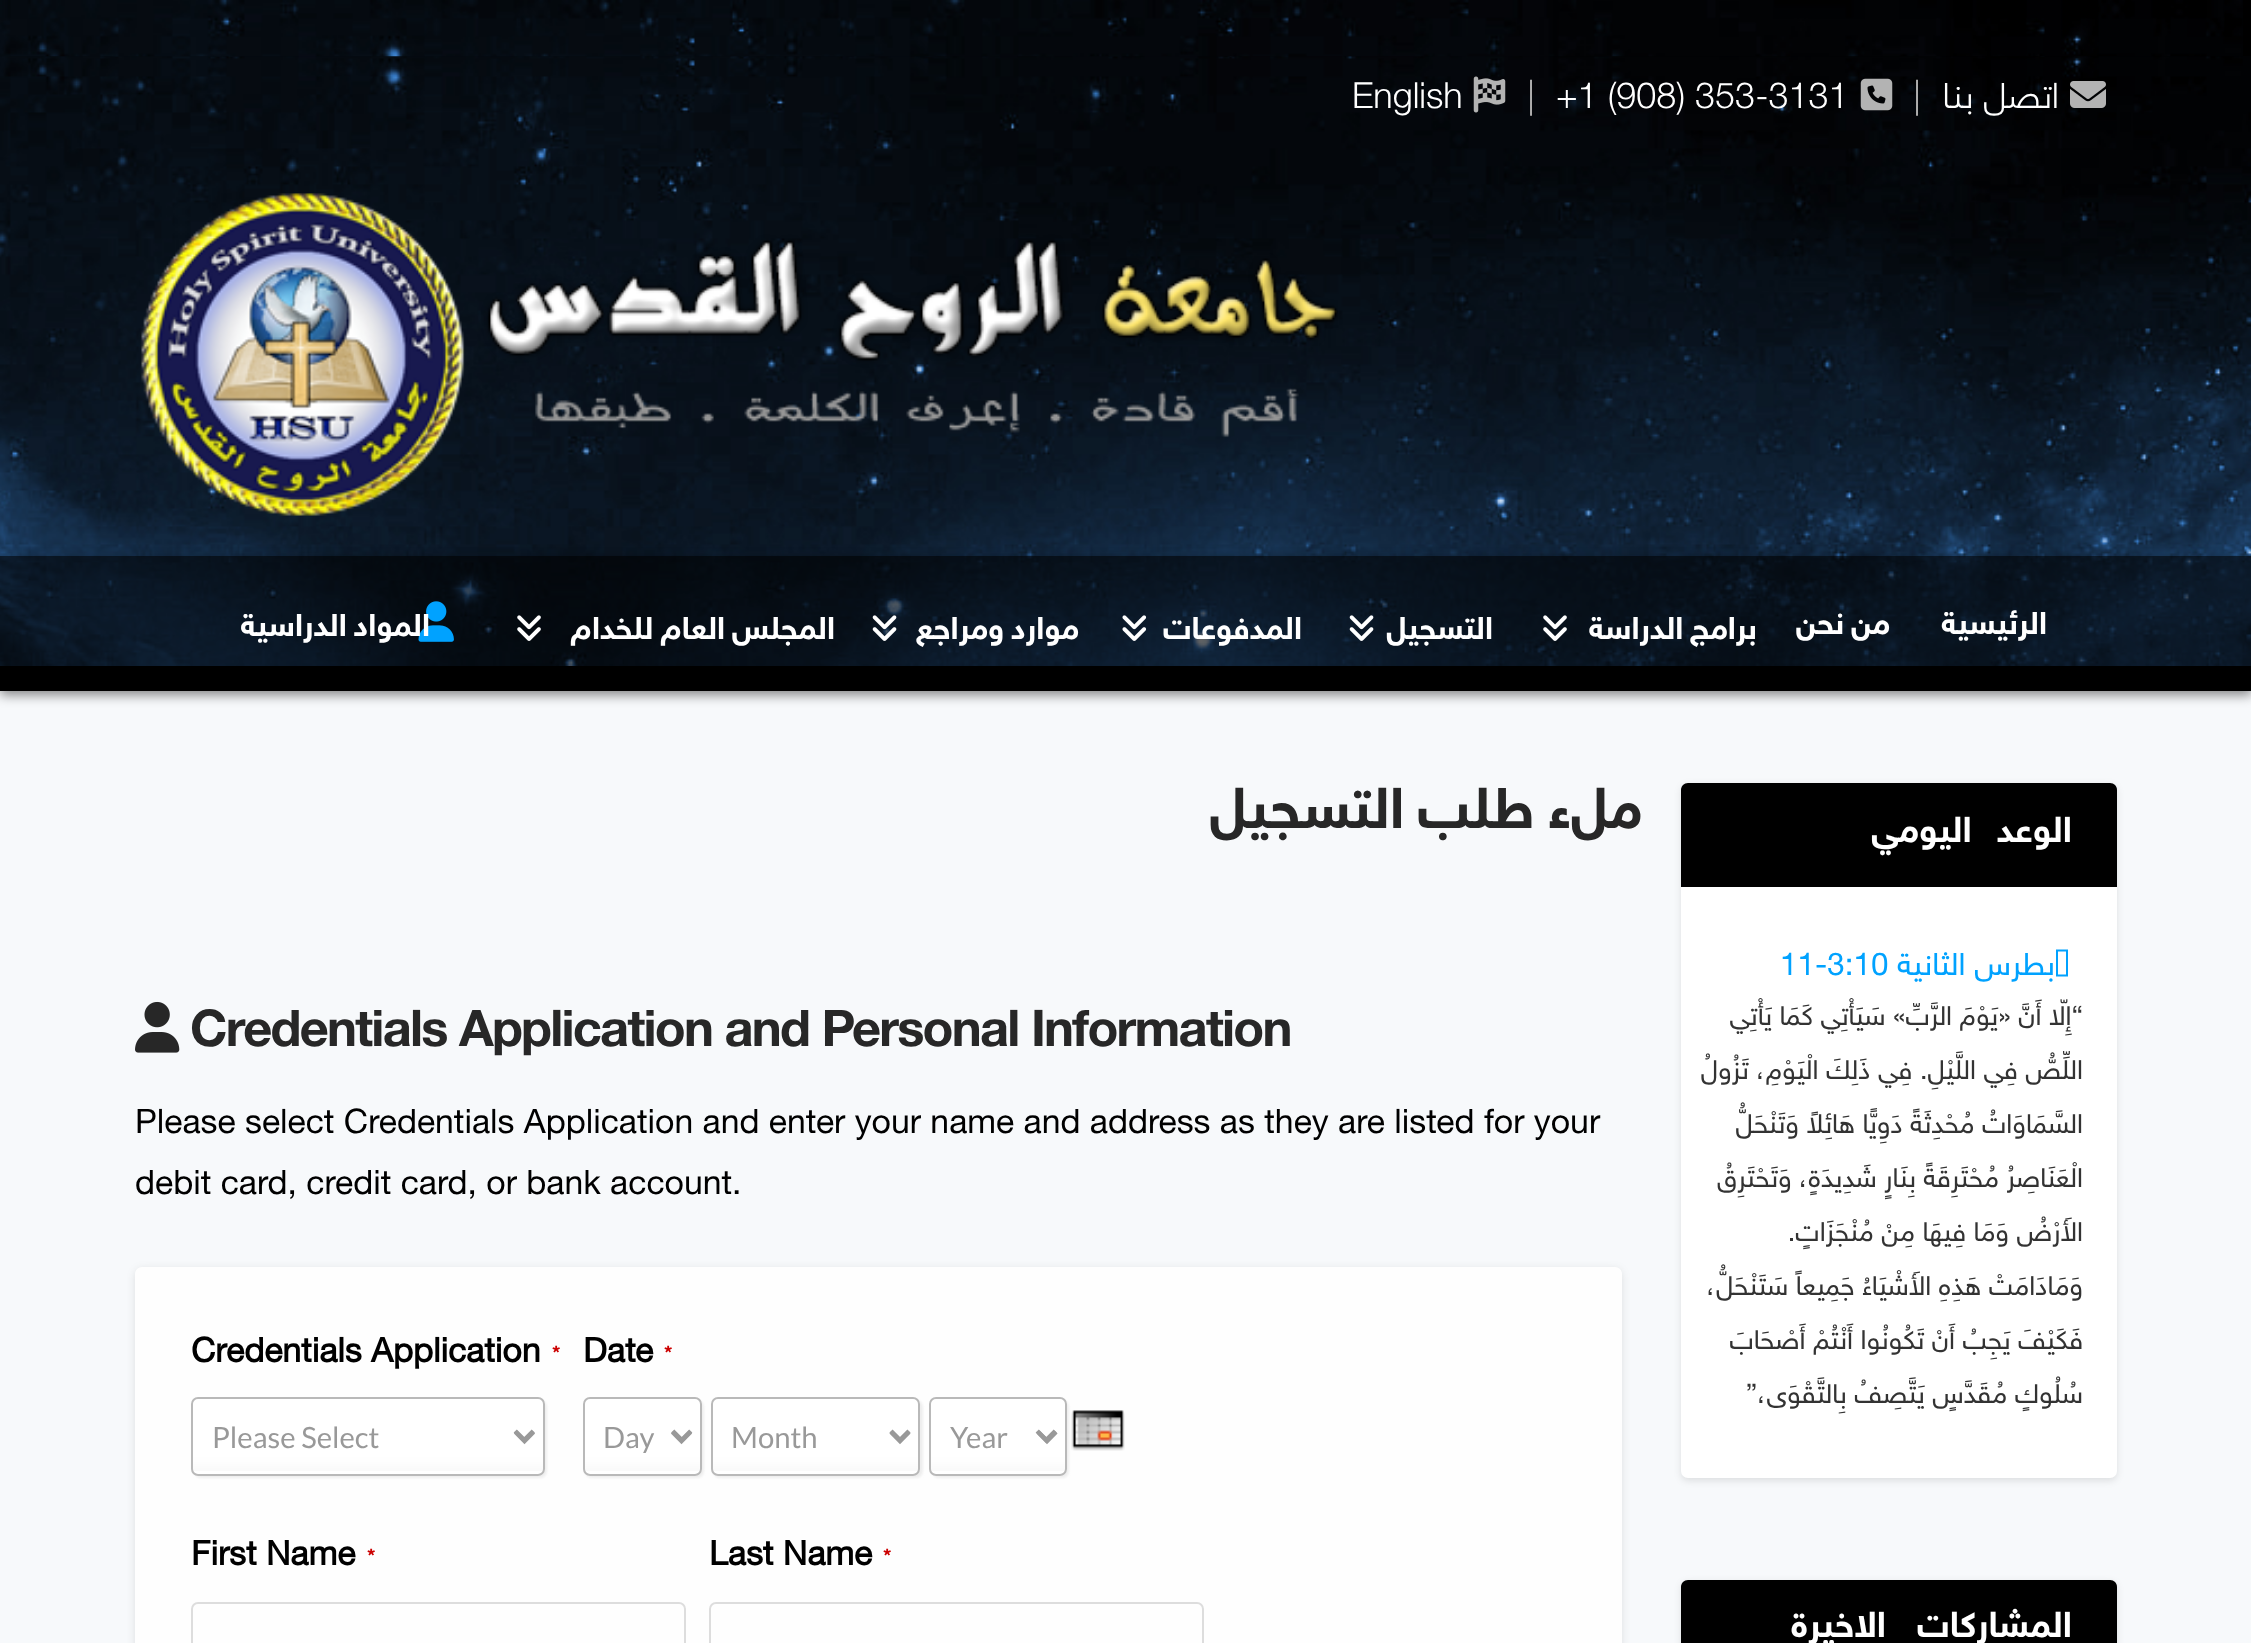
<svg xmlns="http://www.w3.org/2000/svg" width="2251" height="1643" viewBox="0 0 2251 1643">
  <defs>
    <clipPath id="clip1"><path d="M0 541H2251V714H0ZM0 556H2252V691H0Z" clip-rule="evenodd"/></clipPath>
  </defs>
  <rect width="100%" height="100%" fill="rgb(247,249,251)"/>
  <rect x="0" y="666" width="2251" height="25" fill="rgb(0,0,0)"/>
  <image x="0" y="56" width="2251" height="610" href="pic1.png"/>
  <rect x="2243" y="0" width="8" height="56" fill="rgb(0,0,0)"/>
  <image x="0" y="0" width="2243" height="57" href="pic2.png"/>
  <image x="2070" y="81" width="36" height="27" href="pic3.png"/>
  <text x="2059" y="108" font-family="'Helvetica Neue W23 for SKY'" font-size="36" font-weight="300" direction="rtl" fill="rgb(255,255,255)">اتصل بنا</text>
  <text x="1913" y="108" font-family="'Helvetica Neue W23 for SKY'" font-size="36" font-weight="300" fill="rgb(179,179,179)">|</text>
  <image x="1860" y="78" width="33" height="33" href="pic4.png"/>
  <text x="1556" y="108" font-family="'Helvetica Neue W23 for SKY'" font-size="36" font-weight="300" fill="rgb(255,255,255)">+1 (908) 353-3131</text>
  <text x="1527" y="108" font-family="'Helvetica Neue W23 for SKY'" font-size="36" font-weight="300" fill="rgb(179,179,179)">|</text>
  <image x="1473" y="76" width="33" height="37" href="pic5.png"/>
  <text x="1352" y="108" font-family="'Helvetica Neue W23 for SKY'" font-size="36" font-weight="300" fill="rgb(255,255,255)">English</text>
  <image x="141" y="193" width="1197" height="323" href="pic6.png"/>
  <g clip-path="url(#clip1)">
    <rect x="0" y="560" width="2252" height="135" fill="rgba(0,0,0,0.47)" filter="blur(6px)"/>
  </g>
  <rect x="0" y="556" width="2251" height="110" fill="rgba(0,0,0,0.6)"/>
  <g font-family="'Helvetica Neue W23 for SKY'" font-size="31.5" font-weight="bold" letter-spacing="1.4" direction="rtl" fill="rgb(255,255,255)">
    <text x="2047" y="634">الرئيسية</text>
    <text x="1890" y="634" word-spacing="-2">من نحن</text>
    <text x="1757" y="639" word-spacing="-2">برامج الدراسة</text>
  </g>
  <image x="1543" y="615" width="24" height="26" href="pic7.png"/>
  <text x="1493" y="639" font-family="'Helvetica Neue W23 for SKY'" font-size="31.5" font-weight="bold" letter-spacing="1.4" direction="rtl" fill="rgb(255,255,255)">التسجيل</text>
  <image x="1349" y="615" width="25" height="26" href="pic8.png"/>
  <text x="1302" y="639" font-family="'Helvetica Neue W23 for SKY'" font-size="31.5" font-weight="bold" letter-spacing="1.4" direction="rtl" fill="rgb(255,255,255)">المدفوعات</text>
  <image x="1122" y="615" width="25" height="26" href="pic9.png"/>
  <text x="1079" y="639" word-spacing="-2" font-family="'Helvetica Neue W23 for SKY'" font-size="31.5" font-weight="bold" letter-spacing="1.4" direction="rtl" fill="rgb(255,255,255)">موارد ومراجع</text>
  <image x="872" y="615" width="25" height="26" href="pic10.png"/>
  <text x="835" y="639" word-spacing="-2" font-family="'Helvetica Neue W23 for SKY'" font-size="31.5" font-weight="bold" letter-spacing="1.4" direction="rtl" fill="rgb(255,255,255)">المجلس العام للخدام</text>
  <image x="517" y="615" width="24" height="26" href="pic11.png"/>
  <image x="418" y="601" width="36" height="41" href="pic12.png"/>
  <text x="430" y="636" word-spacing="-2" font-family="'Helvetica Neue W23 for SKY'" font-size="31.5" font-weight="bold" letter-spacing="1.4" direction="rtl" fill="rgb(255,255,255)">المواد الدراسية</text>
  <rect x="1681" y="785" width="436" height="696" rx="7" fill="rgba(0,0,0,0.1)" filter="blur(3.5px)"/>
  <rect x="1681" y="783" width="436" height="695" rx="7" fill="rgb(255,255,255)"/>
  <path d="M1688 783H2110C2114 783 2117 786 2117 790V887H1681V790C1681 786 1684 783 1688 783Z" fill="rgb(0,0,0)"/>
  <text x="2072" y="842" word-spacing="15" font-family="'Helvetica Neue W23 for SKY'" font-size="36" font-weight="bold" letter-spacing="-1.25" direction="rtl" fill="rgb(255,255,255)">الوعد اليومي</text>
  <text x="2055" y="975" font-family="'Helvetica Neue W23 for SKY'" font-size="31.5" direction="rtl" fill="rgb(0,162,255)">ﺑﻄﺮﺱ ﺍﻟﺜﺎﻧﻴﺔ</text>
  <path d="M2058 974.5H2066V951.5H2058ZM2056 976.5V949.5H2068V976.5Z" fill="rgb(0,162,255)"/>
  <text x="1780" y="975" font-family="'Helvetica Neue W23 for SKY'" font-size="31.5" fill="rgb(0,162,255)">11-3:10</text>
  <g font-family="'Helvetica Neue W23 for SKY'" font-size="27" direction="rtl" fill="rgb(51,51,51)">
    <text x="2083" y="1025">“إِلّا أَنَّ «يَوْمَ الرَّبِّ» سَيَأْتِي كَمَا يَأْتِي</text>
    <text x="2083" y="1079">اللِّصُّ فِي اللَّيْلِ. فِي ذَلِكَ الْيَوْمِ، تَزُولُ</text>
    <text x="2083" y="1133">السَّمَاوَاتُ مُحْدِثَةً دَوِيًّا هَائِلاً وَتَنْحَلُّ</text>
    <text x="2083" y="1187">الْعَنَاصِرُ مُحْتَرِقَةً بِنَارٍ شَدِيدَةٍ، وَتَحْتَرِقُ</text>
    <text x="2083" y="1241">الأَرْضُ وَمَا فِيهَا مِنْ مُنْجَزَاتٍ.</text>
    <text x="2083" y="1295">وَمَادَامَتْ هَذِهِ الأَشْيَاءُ جَمِيعاً سَتَنْحَلُّ،</text>
    <text x="2083" y="1349">فَكَيْفَ يَجِبُ أَنْ تَكُونُوا أَنْتُمْ أَصْحَابَ</text>
    <text x="2083" y="1403">سُلُوكٍ مُقَدَّسٍ يَتَّصِفُ بِالتَّقْوَى،”</text>
  </g>
  <rect x="1681" y="1582" width="436" height="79" rx="7" fill="rgba(0,0,0,0.1)" filter="blur(3.5px)"/>
  <path d="M1688 1580H2110C2114 1580 2117 1583 2117 1587V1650H1681V1587C1681 1583 1684 1580 1688 1580Z" fill="rgb(0,0,0)"/>
  <text x="2072" y="1637" word-spacing="21" font-family="'Helvetica Neue W23 for SKY'" font-size="36" font-weight="bold" letter-spacing="-1.25" direction="rtl" fill="rgb(255,255,255)">المشاركات الاخيرة</text>
  <text x="1642" y="828" word-spacing="-3" font-family="'Helvetica Neue W23 for SKY'" font-size="57.5" font-weight="bold" letter-spacing="1.75" direction="rtl" fill="rgb(39,39,39)">ملء طلب التسجيل</text>
  <text x="190" y="1046" font-family="'Helvetica Neue W23 for SKY'" font-size="50.6" font-weight="bold" letter-spacing="-1.75" fill="rgb(39,39,39)">Credentials Application and Personal Information</text>
  <image x="135" y="1001" width="45" height="52" href="pic13.png"/>
  <g font-family="'Helvetica Neue W23 for SKY'" font-size="33.75" fill="rgb(0,0,0)">
    <text>
      <tspan x="135" y="1133">Please select Credentials Application and enter your name and address as they are listed for your</tspan>
      <tspan x="135" y="1194">debit card, credit card, or bank account.</tspan>
    </text>
  </g>
  <rect x="135" y="1269" width="1487" height="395" rx="7" fill="rgba(0,0,0,0.1)" filter="blur(4.5px)"/>
  <rect x="135" y="1267" width="1487" height="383" rx="7" fill="rgb(254,254,254)"/>
  <text x="664" y="1362" font-family="'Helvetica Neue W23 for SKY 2'" font-size="22" font-weight="bold" fill="rgb(204,1,1)">*</text>
  <text x="583" y="1362" font-family="'Helvetica Neue W23 for SKY 2'" font-size="33.75" font-weight="bold" fill="rgb(0,0,0)">Date</text>
  <rect x="932" y="1400" width="137" height="78" rx="7" fill="rgb(238,238,238)" filter="blur(1px)"/>
  <image x="1071" y="1410" width="54" height="41" href="pic14.png"/>
  <rect x="929" y="1397" width="138" height="79" rx="7" fill="rgb(255,255,255)"/>
  <image x="931" y="1429" width="134" height="42" href="pic15.png"/>
  <rect x="930" y="1398" width="136" height="77" rx="6" fill="none" stroke="rgb(185,185,185)" stroke-width="2"/>
  <path d="M1038 1432L1047 1441L1056 1432" fill="none" stroke="rgb(153,153,153)" stroke-width="4.5"/>
  <text x="950" y="1448" font-family="Lato" font-size="29.25" fill="rgb(153,153,153)">Year</text>
  <rect x="713" y="1400" width="210" height="78" rx="7" fill="rgb(238,238,238)" filter="blur(1px)"/>
  <rect x="711" y="1397" width="209" height="79" rx="7" fill="rgb(255,255,255)"/>
  <image x="711" y="1429" width="209" height="42" href="pic16.png"/>
  <rect x="712" y="1398" width="207" height="77" rx="6" fill="none" stroke="rgb(185,185,185)" stroke-width="2"/>
  <path d="M891 1432L900 1441L909 1432" fill="none" stroke="rgb(153,153,153)" stroke-width="4.5"/>
  <text x="731" y="1448" font-family="Lato" font-size="29.25" fill="rgb(153,153,153)">Month</text>
  <rect x="585" y="1400" width="119" height="78" rx="7" fill="rgb(238,238,238)" filter="blur(1px)"/>
  <rect x="583" y="1397" width="119" height="79" rx="7" fill="rgb(255,255,255)"/>
  <image x="583" y="1429" width="119" height="42" href="pic17.png"/>
  <rect x="584" y="1398" width="117" height="77" rx="6" fill="none" stroke="rgb(185,185,185)" stroke-width="2"/>
  <path d="M672.5 1432L681.5 1441L690.5 1432" fill="none" stroke="rgb(153,153,153)" stroke-width="4.5"/>
  <text x="603" y="1448" font-family="Lato" font-size="29.25" fill="rgb(153,153,153)">Day</text>
  <text x="552" y="1362" font-family="'Helvetica Neue W23 for SKY 2'" font-size="22" font-weight="bold" fill="rgb(204,1,1)">*</text>
  <text x="191" y="1362" font-family="'Helvetica Neue W23 for SKY 2'" font-size="33.75" font-weight="bold" fill="rgb(0,0,0)">Credentials Application</text>
  <rect x="194" y="1400" width="353" height="78" rx="7" fill="rgb(238,238,238)" filter="blur(1px)"/>
  <rect x="191" y="1397" width="354" height="79" rx="7" fill="rgb(255,255,255)"/>
  <image x="193" y="1429" width="350" height="42" href="pic18.png"/>
  <rect x="192" y="1398" width="352" height="77" rx="6" fill="none" stroke="rgb(185,185,185)" stroke-width="2"/>
  <path d="M515.5 1432L524.5 1441L533.5 1432" fill="none" stroke="rgb(153,153,153)" stroke-width="4.5"/>
  <text x="212" y="1448" font-family="Lato" font-size="29.25" fill="rgb(153,153,153)">Please Select</text>
  <text x="883" y="1565" font-family="'Helvetica Neue W23 for SKY 2'" font-size="22" font-weight="bold" fill="rgb(204,1,1)">*</text>
  <text x="709" y="1565" font-family="'Helvetica Neue W23 for SKY 2'" font-size="33.75" font-weight="bold" fill="rgb(0,0,0)">Last Name</text>
  <rect x="710" y="1603" width="493" height="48" rx="6" fill="none" stroke="rgb(221,221,221)" stroke-width="2"/>
  <text x="367" y="1565" font-family="'Helvetica Neue W23 for SKY 2'" font-size="22" font-weight="bold" fill="rgb(204,1,1)">*</text>
  <text x="191" y="1565" font-family="'Helvetica Neue W23 for SKY 2'" font-size="33.75" font-weight="bold" fill="rgb(0,0,0)">First Name</text>
  <rect x="192" y="1603" width="493" height="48" rx="6" fill="none" stroke="rgb(221,221,221)" stroke-width="2"/>
</svg>
